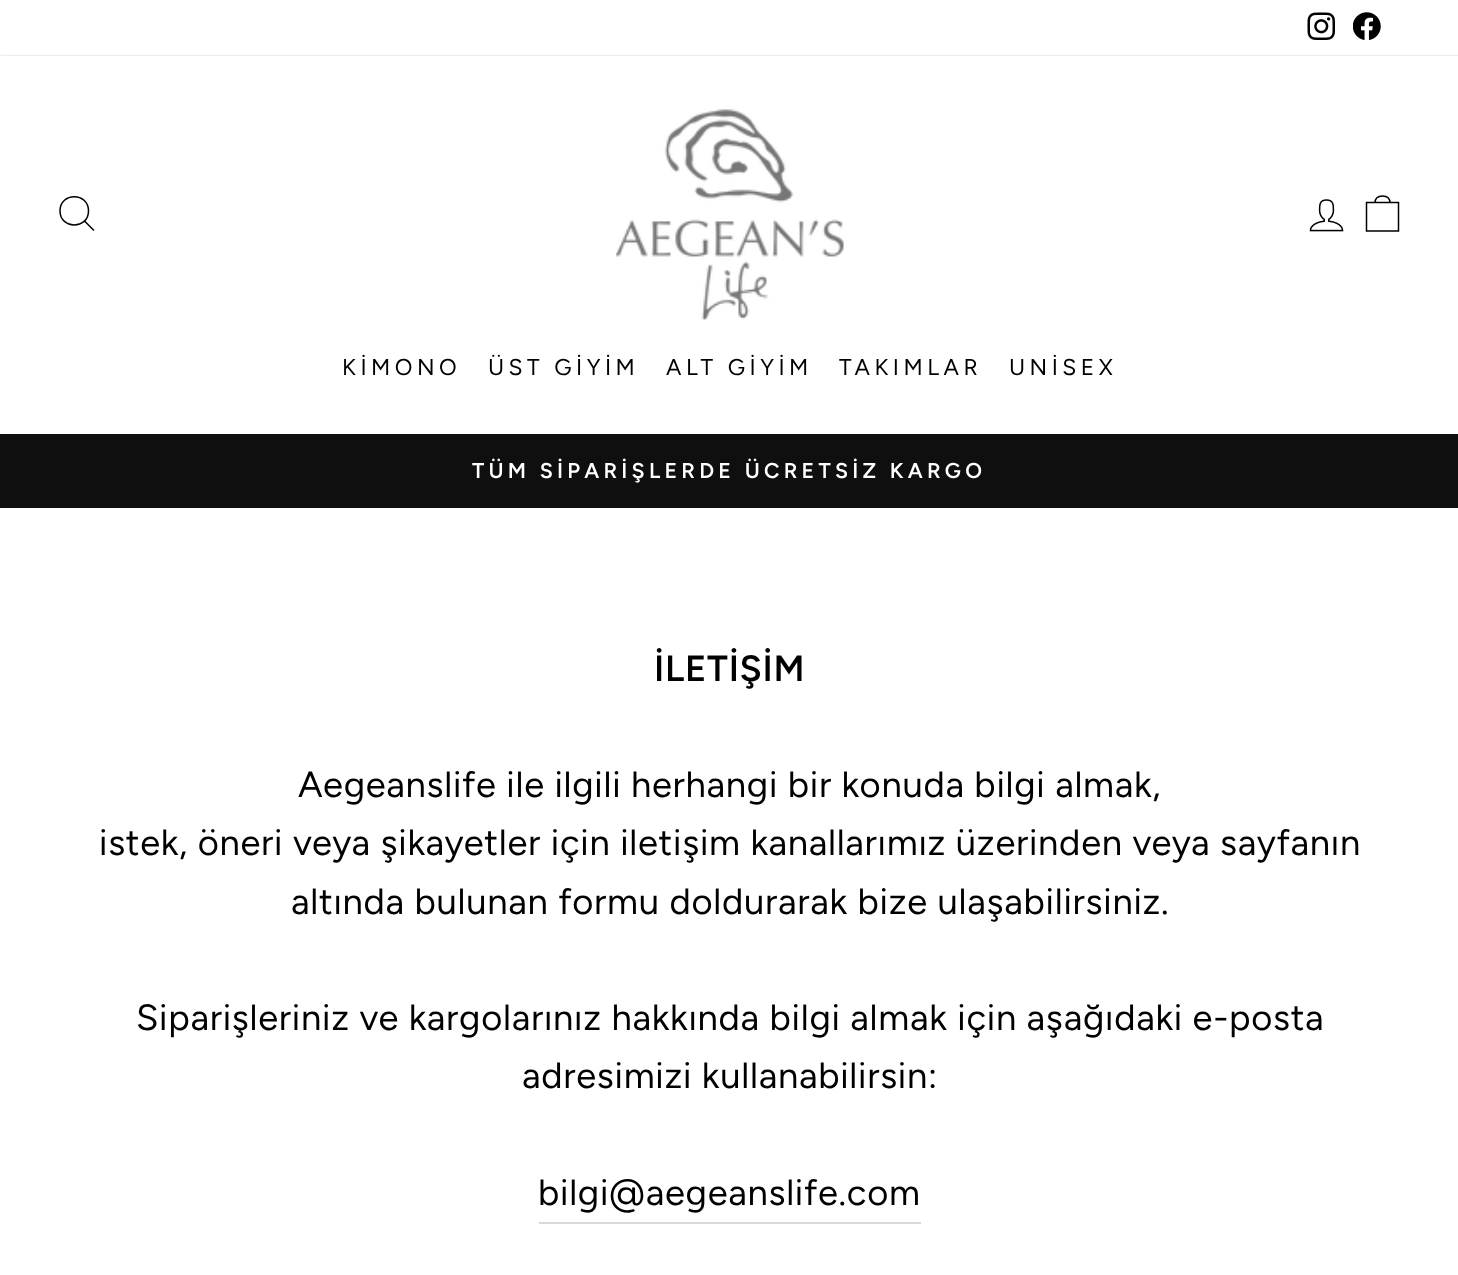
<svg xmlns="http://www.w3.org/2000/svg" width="1458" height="1275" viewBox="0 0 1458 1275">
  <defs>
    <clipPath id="clip1"><path d="M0 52H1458V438H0ZM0 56H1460V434H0Z" clip-rule="evenodd"/></clipPath>
  </defs>
  <rect width="100%" height="100%" fill="rgb(255,255,255)"/>
  <image x="1307" y="12" width="28" height="28" href="pic1.png"/>
  <image x="1353" y="12" width="28" height="28" href="pic2.png"/>
  <rect x="0" y="434" width="1458" height="74" fill="rgb(15,15,15)"/>
  <g clip-path="url(#clip1)">
    <rect x="0" y="56" width="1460" height="378" fill="rgba(0,0,0,0.2)" filter="blur(1px)"/>
  </g>
  <path d="M88.5 211C88.5 229.5 60 229.5 60 211C60 192 88.5 192 88.5 211ZM94 230.5L84.5 221" fill="none" stroke="rgb(0,0,0)" stroke-width="1.5"/>
  <image x="616" y="109" width="228" height="211" href="pic3.png"/>
  <image x="1309" y="199" width="35" height="33" href="pic4.png"/>
  <path d="M1366.5 202.5H1398.5V231H1366.5ZM1375 203C1375 197.5 1378.5 196 1382.5 196C1386.5 196 1390 197.5 1390 203" fill="none" stroke="rgb(0,0,0)" stroke-width="1.5"/>
  <g font-family="Figtree" font-size="22.75" letter-spacing="4.5" fill="rgb(0,0,0)">
    <text x="342" y="375">KİMONO</text>
    <text x="488" y="375">ÜST GİYİM</text>
    <text x="666" y="375">ALT GİYİM</text>
    <text x="839" y="375">TAKIMLAR</text>
    <text x="1009" y="375">UNİSEX</text>
  </g>
  <text x="472" y="478" font-family="Figtree" font-size="21.4" font-weight="600" letter-spacing="4.25" fill="rgb(255,255,255)">TÜM SİPARİŞLERDE ÜCRETSİZ KARGO</text>
  <text x="654" y="681" font-family="Figtree" font-size="36.4" font-weight="600" letter-spacing="0.7" fill="rgb(0,0,0)">İLETİŞİM</text>
  <g font-family="Figtree" font-size="36.4" letter-spacing="0.7" fill="rgb(0,0,0)">
    <text x="298" y="797">Aegeanslife ile ilgili herhangi bir konuda bilgi almak,</text>
    <text x="99" y="855">istek, öneri veya şikayetler için iletişim kanallarımız üzerinden veya sayfanın</text>
    <text x="291" y="914">altında bulunan formu doldurarak bize ulaşabilirsiniz.</text>
    <text x="136" y="1030">Siparişleriniz ve kargolarınız hakkında bilgi almak için aşağıdaki e-posta</text>
    <text x="522" y="1088">adresimizi kullanabilirsin:</text>
  </g>
  <rect x="539" y="1222" width="382" height="2" fill="rgb(217,217,217)"/>
  <text x="538" y="1205" font-family="Figtree" font-size="36.4" letter-spacing="0.7" fill="rgb(0,0,0)">bilgi@aegeanslife.com</text>
</svg>
